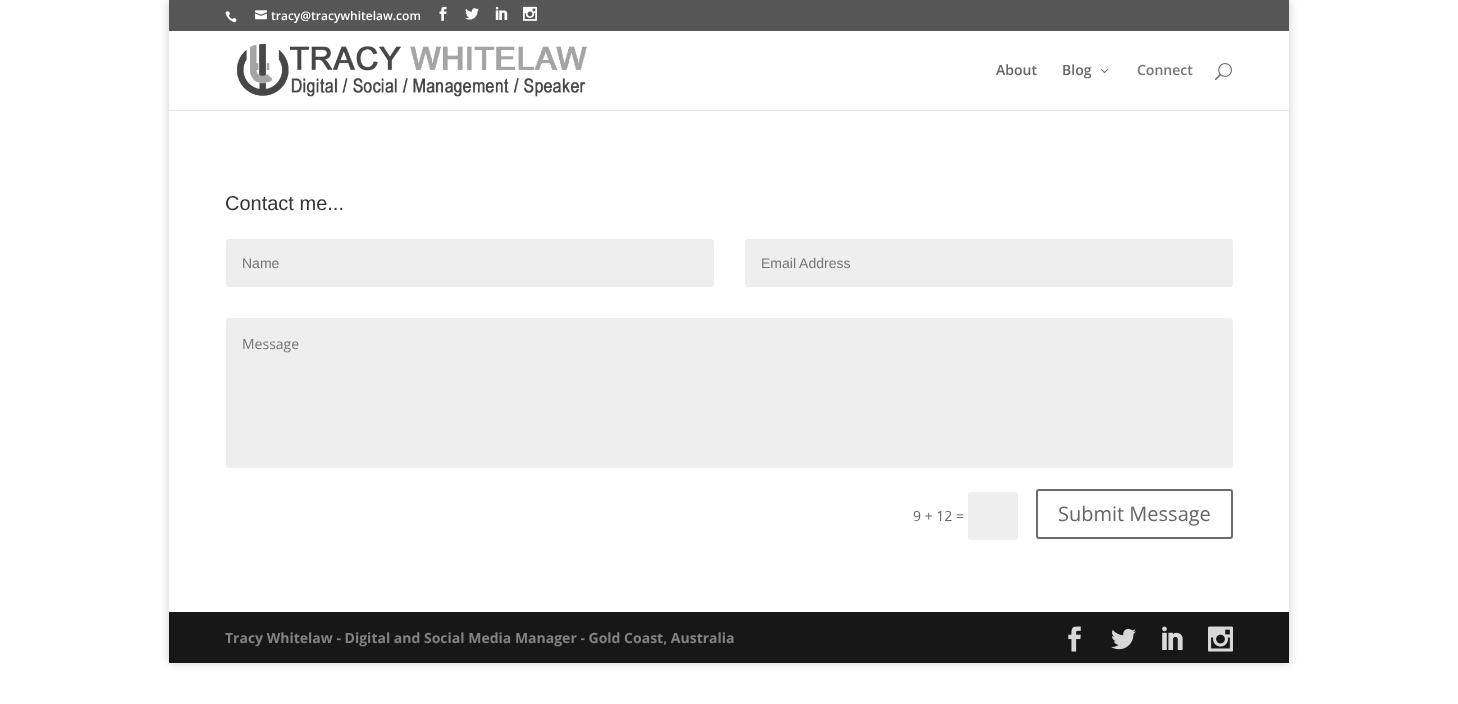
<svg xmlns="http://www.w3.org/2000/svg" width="1458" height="704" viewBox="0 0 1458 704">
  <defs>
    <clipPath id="clip1"><path d="M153 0H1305V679H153ZM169 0H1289V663H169Z" clip-rule="evenodd"/></clipPath>
  </defs>
  <rect width="100%" height="100%" fill="rgb(255,255,255)"/>
  <g clip-path="url(#clip1)">
    <rect x="169" y="0" width="1120" height="663" fill="rgba(0,0,0,0.2)" filter="blur(5px)"/>
  </g>
  <rect x="169" y="0" width="1120" height="31" fill="rgb(86,86,86)"/>
  <image x="225" y="11" width="12" height="12" href="pic1.png"/>
  <image x="255" y="10" width="12" height="10" href="pic2.png"/>
  <text x="271" y="20" font-family="Open Sans" font-size="12" font-weight="600" fill="rgb(255,255,255)">tracy@tracywhitelaw.com</text>
  <image x="439" y="6" width="8" height="15" href="pic3.png"/>
  <image x="465" y="8" width="14" height="12" href="pic4.png"/>
  <image x="495" y="6" width="13" height="14" href="pic5.png"/>
  <image x="523" y="6" width="14" height="15" href="pic6.png"/>
  <rect x="169" y="110" width="1120" height="1" fill="rgb(230,230,230)"/>
  <image x="237" y="44" width="350" height="53" href="pic7.png"/>
  <g font-family="Open Sans" font-size="14" font-weight="600" fill="rgb(102,102,102)">
    <text x="996" y="75">About</text>
    <text x="1062" y="75">Blog</text>
  </g>
  <image x="1100" y="68" width="9" height="5" href="pic8.png"/>
  <text x="1137" y="75" font-family="Open Sans" font-size="14" font-weight="600" fill="rgb(117,117,117)">Connect</text>
  <image x="1215" y="63" width="17" height="18" href="pic9.png"/>
  <text x="225" y="210" font-family="Liberation Sans" font-size="20" fill="rgb(51,51,51)">Contact me...</text>
  <rect x="226" y="239" width="488" height="48" rx="3" fill="rgb(238,238,238)"/>
  <text x="242" y="268" font-family="Liberation Sans" font-size="14" fill="rgb(117,117,117)">Name</text>
  <rect x="745" y="239" width="488" height="48" rx="3" fill="rgb(238,238,238)"/>
  <text x="761" y="268" font-family="Liberation Sans" font-size="14" fill="rgb(117,117,117)">Email Address</text>
  <rect x="226" y="318" width="1007" height="150" rx="3" fill="rgb(238,238,238)"/>
  <text x="242" y="349" font-family="Open Sans" font-size="14" fill="rgb(117,117,117)">Message</text>
  <text x="913" y="521" font-family="Open Sans" font-size="14" fill="rgb(102,102,102)">9 + 12 =</text>
  <rect x="968" y="492" width="50" height="48" rx="3" fill="rgb(238,238,238)"/>
  <rect x="1037" y="490" width="195" height="48" rx="2" fill="none" stroke="rgb(107,107,107)" stroke-width="2"/>
  <text x="1058" y="521" font-family="Open Sans" font-size="20" fill="rgb(102,102,102)">Submit Message</text>
  <rect x="169" y="612" width="1120" height="51" fill="rgb(23,23,23)"/>
  <text x="225" y="643" font-family="Open Sans" font-size="14" font-weight="bold" fill="rgb(130,130,130)">Tracy Whitelaw - Digital and Social Media Manager - Gold Coast, Australia</text>
  <image x="1068" y="626" width="13" height="26" href="pic10.png"/>
  <image x="1111" y="628" width="25" height="22" href="pic11.png"/>
  <image x="1162" y="626" width="21" height="24" href="pic12.png"/>
  <image x="1208" y="626" width="25" height="26" href="pic13.png"/>
</svg>
